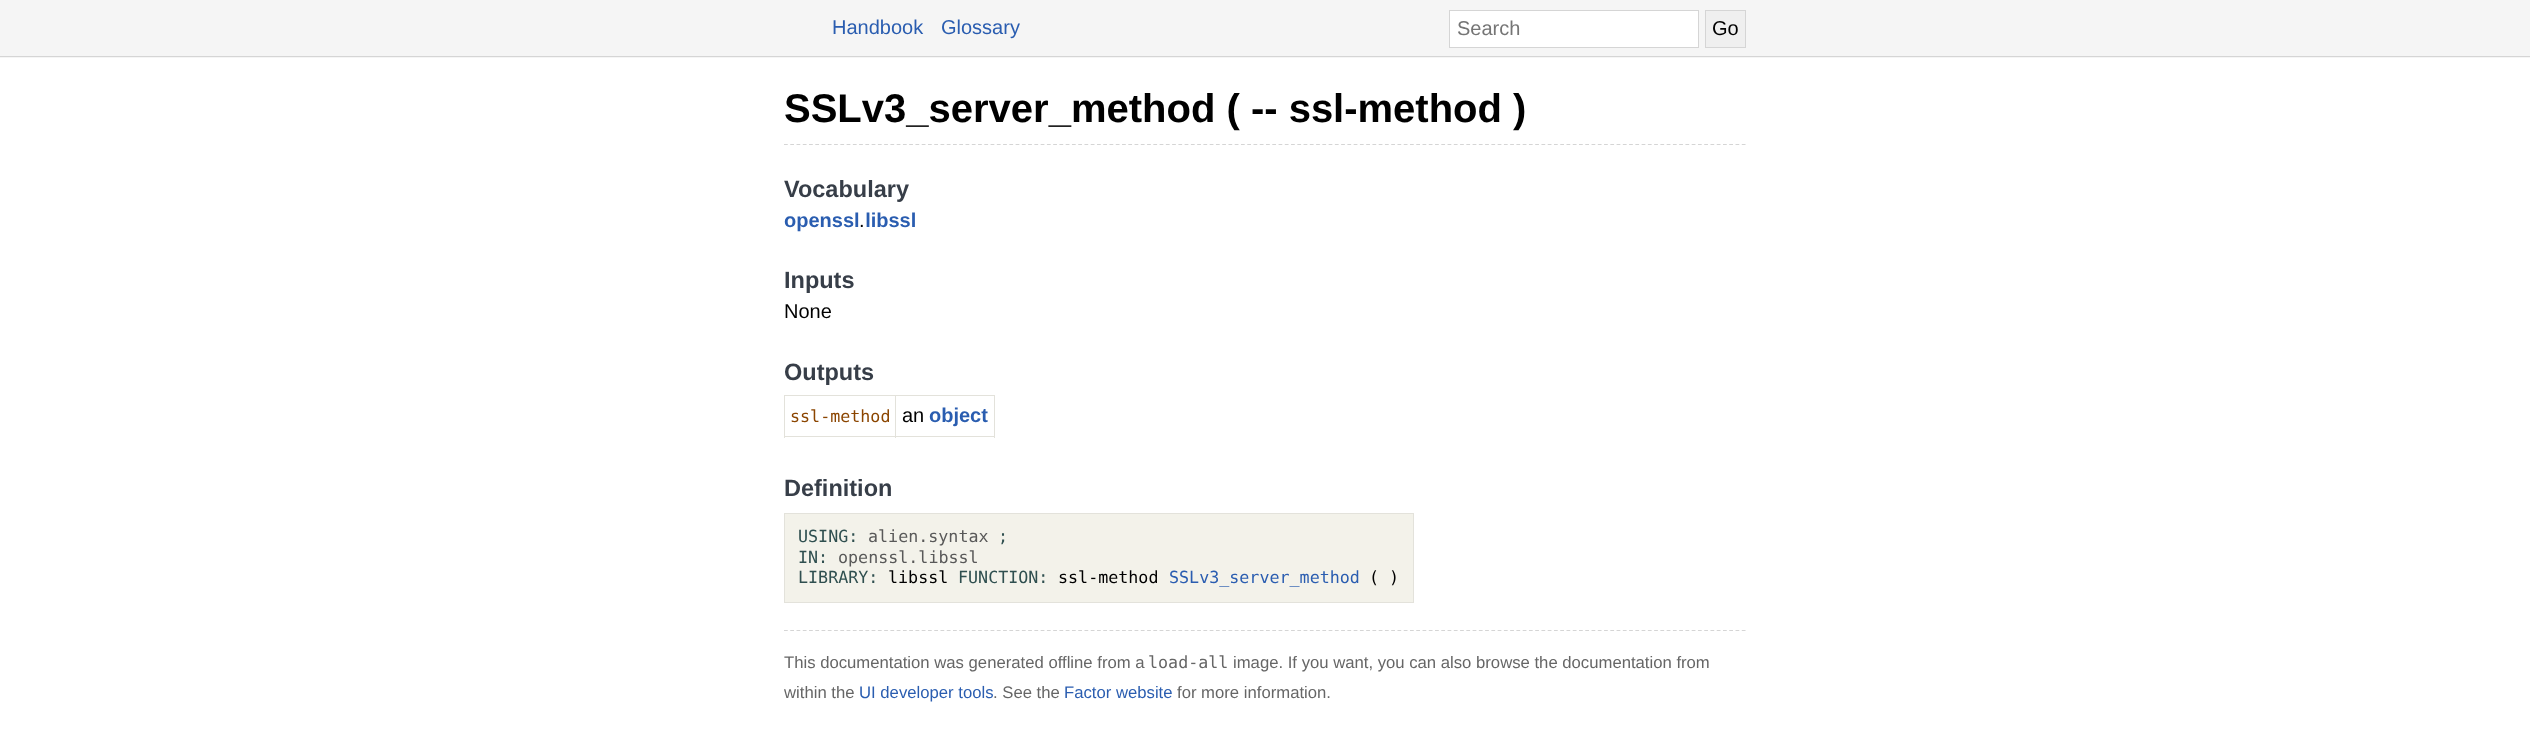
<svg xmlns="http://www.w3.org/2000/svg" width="2530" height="736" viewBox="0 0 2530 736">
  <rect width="100%" height="100%" fill="rgb(255,255,255)"/>
  <rect x="0" y="0" width="2530" height="58" fill="rgb(245,245,245)"/>
  <rect x="0" y="56" width="2530" height="1" fill="rgb(213,213,213)"/>
  <g font-family="Liberation Sans" font-size="20" fill="rgb(42,93,176)">
    <text x="832" y="34">Handbook</text>
    <text x="941" y="34">Glossary</text>
  </g>
  <rect x="1449.5" y="10.5" width="249" height="37" fill="rgb(255,255,255)" stroke="rgb(213,213,213)"/>
  <text x="1457" y="35" font-family="Liberation Sans" font-size="20" fill="rgb(117,117,117)">Search</text>
  <rect x="1705.5" y="10.5" width="40" height="37" fill="rgb(239,239,239)" stroke="rgb(213,213,213)"/>
  <text x="1712" y="35" font-family="Liberation Sans" font-size="20" fill="rgb(0,0,0)">Go</text>
  <path d="M784 144.5H1746" fill="none" stroke="rgb(213,213,213)" stroke-width="1.2" stroke-dasharray="3.75 2.51"/>
  <text x="784" y="122" font-family="Liberation Sans" font-size="40" font-weight="bold" fill="rgb(0,0,0)">SSLv3_server_method ( -- ssl-method )</text>
  <text x="784" y="197" font-family="Liberation Sans" font-size="23.5" font-weight="bold" fill="rgb(55,62,72)">Vocabulary</text>
  <text x="784" y="227" font-family="Liberation Sans" font-size="20" font-weight="bold" fill="rgb(42,93,176)">openssl libssl</text>
  <text x="859" y="227" font-family="Liberation Sans" font-size="20" fill="rgb(0,0,0)">.</text>
  <text x="784" y="288" font-family="Liberation Sans" font-size="23.5" font-weight="bold" fill="rgb(55,62,72)">Inputs</text>
  <text x="784" y="318" font-family="Liberation Sans" font-size="20" fill="rgb(0,0,0)">None</text>
  <text x="784" y="380" font-family="Liberation Sans" font-size="23.5" font-weight="bold" fill="rgb(55,62,72)">Outputs</text>
  <rect x="895" y="395" width="100" height="1" fill="rgb(227,226,219)"/>
  <rect x="994" y="395" width="1" height="43" fill="rgb(227,226,219)"/>
  <rect x="895" y="436" width="100" height="1" fill="rgb(227,226,219)"/>
  <rect x="895" y="395" width="1" height="43" fill="rgb(227,226,219)"/>
  <rect x="784" y="395" width="112" height="1" fill="rgb(227,226,219)"/>
  <rect x="784" y="436" width="112" height="1" fill="rgb(227,226,219)"/>
  <rect x="784" y="395" width="1" height="43" fill="rgb(227,226,219)"/>
  <text x="790" y="422" font-family="DejaVu Sans Mono" font-size="16.7" fill="rgb(139,69,0)">ssl-method</text>
  <text x="902" y="422" font-family="Liberation Sans" font-size="20" fill="rgb(0,0,0)">an</text>
  <text x="929" y="422" font-family="Liberation Sans" font-size="20" font-weight="bold" fill="rgb(42,93,176)">object</text>
  <text x="784" y="496" font-family="Liberation Sans" font-size="23.5" font-weight="bold" fill="rgb(55,62,72)">Definition</text>
  <rect x="784.5" y="513.5" width="629" height="89" fill="rgb(243,242,234)" stroke="rgb(227,226,219)"/>
  <text x="798" y="542" font-family="DejaVu Sans Mono" font-size="16.7" fill="rgb(47,79,79)">USING:</text>
  <text x="868" y="542" font-family="DejaVu Sans Mono" font-size="16.7" fill="rgb(89,89,89)">alien.syntax</text>
  <g font-family="DejaVu Sans Mono" font-size="16.7" fill="rgb(47,79,79)">
    <text x="998" y="542">;</text>
    <text x="798" y="563">IN:</text>
  </g>
  <text x="838" y="563" font-family="DejaVu Sans Mono" font-size="16.7" fill="rgb(89,89,89)">openssl.libssl</text>
  <text x="798" y="583" font-family="DejaVu Sans Mono" font-size="16.7" fill="rgb(47,79,79)">LIBRARY:</text>
  <text x="888" y="583" font-family="DejaVu Sans Mono" font-size="16.7" fill="rgb(0,0,0)">libssl</text>
  <text x="958" y="583" font-family="DejaVu Sans Mono" font-size="16.7" fill="rgb(47,79,79)">FUNCTION:</text>
  <text x="1058" y="583" font-family="DejaVu Sans Mono" font-size="16.7" fill="rgb(0,0,0)">ssl-method</text>
  <text x="1169" y="583" font-family="DejaVu Sans Mono" font-size="16.7" fill="rgb(42,93,176)">SSLv3_server_method</text>
  <text x="1369" y="583" font-family="DejaVu Sans Mono" font-size="16.7" fill="rgb(0,0,0)">( )</text>
  <path d="M784 630.5H1746" fill="none" stroke="rgb(213,213,213)" stroke-width="1.2" stroke-dasharray="3.75 2.51"/>
  <text x="784" y="668" font-family="Liberation Sans" font-size="16.7" fill="rgb(102,102,102)">This documentation was generated offline from a</text>
  <text x="1148" y="668" font-family="DejaVu Sans Mono" font-size="16.7" fill="rgb(102,102,102)">load-all</text>
  <g font-family="Liberation Sans" font-size="16.7" fill="rgb(102,102,102)">
    <text x="1233" y="668">image. If you want, you can also browse the documentation from</text>
    <text x="784" y="698">within the</text>
  </g>
  <text x="859" y="698" font-family="Liberation Sans" font-size="16.7" fill="rgb(42,93,176)">UI developer tools</text>
  <text x="993" y="698" font-family="Liberation Sans" font-size="16.7" fill="rgb(102,102,102)">. See the</text>
  <text x="1064" y="698" font-family="Liberation Sans" font-size="16.7" fill="rgb(42,93,176)">Factor website</text>
  <text x="1177" y="698" font-family="Liberation Sans" font-size="16.7" fill="rgb(102,102,102)">for more information.</text>
</svg>
